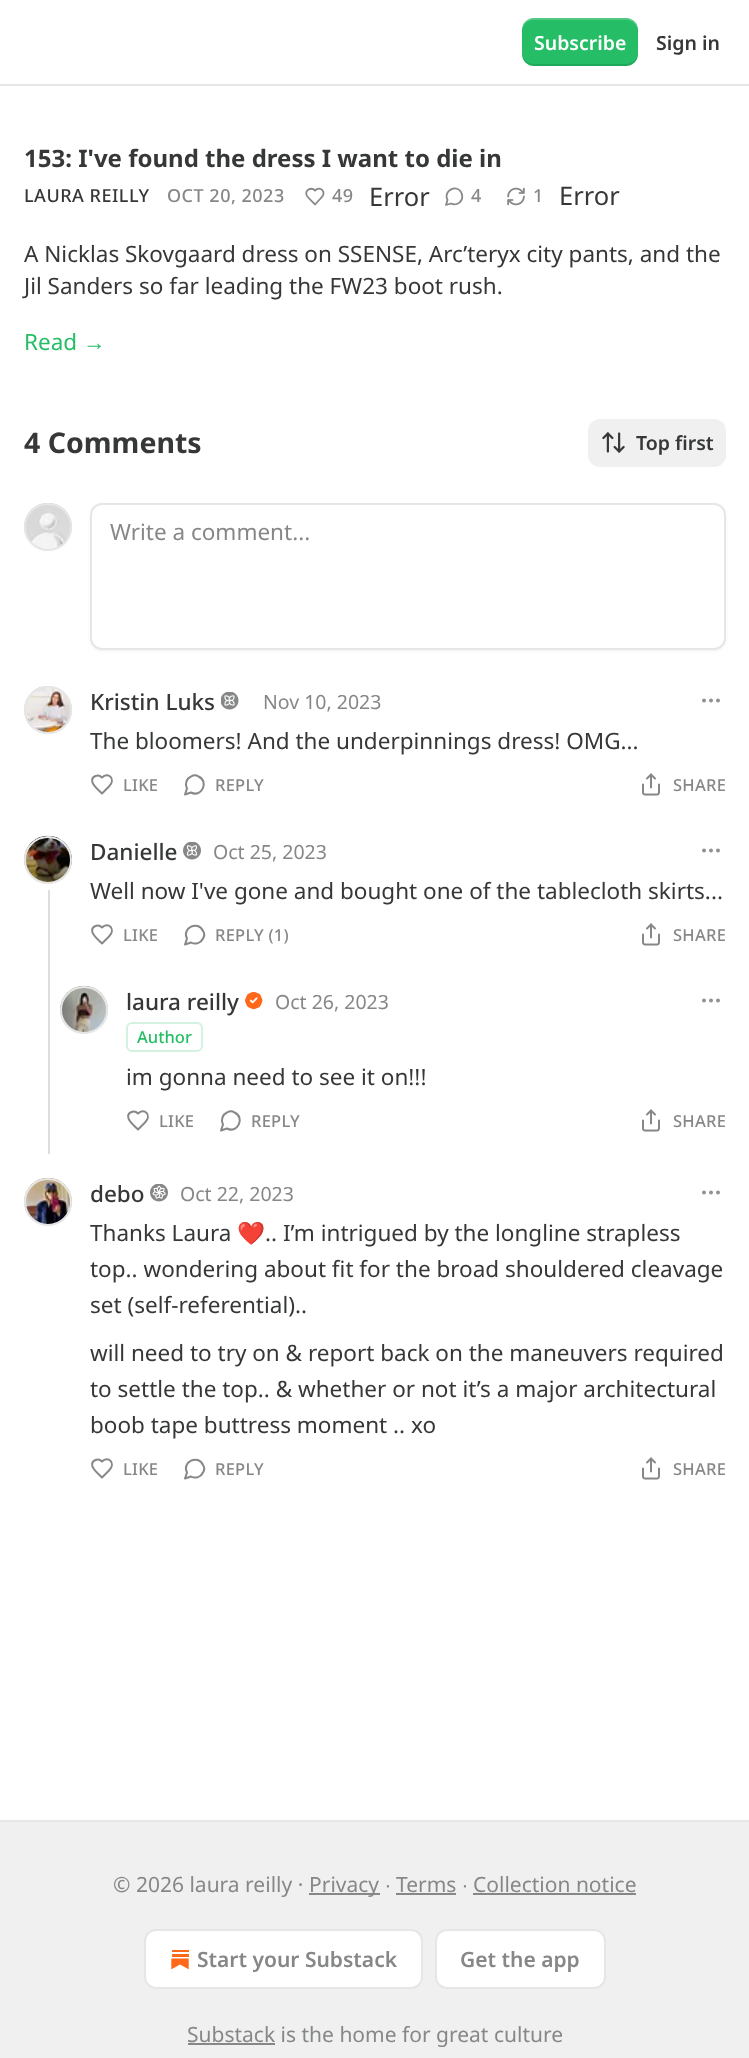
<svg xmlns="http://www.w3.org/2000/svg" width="749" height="2058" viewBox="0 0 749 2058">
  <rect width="100%" height="100%" fill="rgb(255,255,255)"/>
  <rect x="0" y="84" width="749" height="2" fill="rgb(230,230,230)"/>
  <rect x="522" y="18" width="116" height="48" rx="12" fill="rgb(37,189,101)"/>
  <path d="M522 52C522 69 537 66 549 66H611C623 66 638 69 638 52C638 59 632 64 626 64H534C527 64 522 59 522 52Z" fill="rgba(0,0,0,0.1)"/>
  <path d="M534 20H626C632 20 638 25 638 32C638 15 623 18 611 18H549C537 18 522 15 522 32C522 25 527 20 534 20Z" fill="rgba(255,255,255,0.2)"/>
  <text x="534" y="50" font-family="Noto Sans" font-size="19.5" font-weight="600" fill="rgb(255,255,255)">Subscribe</text>
  <text x="656" y="50" font-family="Noto Sans" font-size="19.5" font-weight="600" fill="rgb(54,55,55)">Sign in</text>
  <text x="24" y="167" font-family="Noto Sans" font-size="24" font-weight="bold" fill="rgb(54,55,55)">153: I've found the dress I want to die in</text>
  <text x="24" y="202" font-family="Noto Sans" font-size="18" font-weight="500" letter-spacing="0.5" fill="rgb(54,55,55)">LAURA REILLY</text>
  <text x="167" y="202" font-family="Noto Sans" font-size="18" font-weight="500" letter-spacing="0.5" fill="rgb(134,135,135)">OCT 20, 2023</text>
  <path d="M321 198C327.5 192 320 185.5 315 190.5C311.5 187 305 189.5 306.5 195C307.5 197.5 313 202 315 204.5Z" fill="none" stroke="rgb(134,135,135)" stroke-width="1.8" stroke-linecap="round" stroke-linejoin="round"/>
  <text x="332" y="202" font-family="Noto Sans" font-size="18" font-weight="500" letter-spacing="0.5" fill="rgb(134,135,135)">49</text>
  <text x="369" y="206" font-family="Noto Sans" font-size="25.5" fill="rgb(54,55,55)">Error</text>
  <path d="M451 203.5C455 205.5 459.5 204 461.5 200C462.5 198 462.5 195.5 461.5 193C457.5 183.5 442.5 190.5 447.5 200L446 205Z" fill="none" stroke="rgb(134,135,135)" stroke-width="1.8" stroke-linecap="round" stroke-linejoin="round"/>
  <text x="471" y="202" font-family="Noto Sans" font-size="18" font-weight="500" letter-spacing="0.5" fill="rgb(134,135,135)">4</text>
  <image x="507" y="187" width="18" height="19" href="pic1.png"/>
  <text x="533" y="202" font-family="Noto Sans" font-size="18" font-weight="500" letter-spacing="0.5" fill="rgb(134,135,135)">1</text>
  <text x="559" y="205" font-family="Noto Sans" font-size="25.5" fill="rgb(54,55,55)">Error</text>
  <g font-family="Noto Sans" font-size="22.5" fill="rgb(54,55,55)">
    <text>
      <tspan x="24" y="262">A Nicklas Skovgaard dress on SSENSE, Arc’teryx city pants, and the</tspan>
      <tspan x="24" y="294">Jil Sanders so far leading the FW23 boot rush.</tspan>
    </text>
  </g>
  <text x="24" y="350" font-family="Noto Sans" font-size="22.5" fill="rgb(37,189,101)">Read</text>
  <text x="83" y="350" font-family="Liberation Sans" font-size="22.5" fill="rgb(37,189,101)">→</text>
  <text x="24" y="453" font-family="Noto Sans" font-size="28.5" font-weight="bold" fill="rgb(54,55,55)">4 Comments</text>
  <rect x="588" y="419" width="138" height="48" rx="12" fill="rgb(240,240,240)"/>
  <image x="602" y="432" width="23" height="21" href="pic2.png"/>
  <text x="636" y="450" font-family="Noto Sans" font-size="19.5" font-weight="600" fill="rgb(54,55,55)">Top first</text>
  <circle cx="48" cy="527" r="23" fill="none" stroke="rgb(230,230,230)" stroke-width="2"/>
  <image x="24" y="503" width="48" height="47" href="pic3.png"/>
  <circle cx="48" cy="527" r="23" fill="none" stroke="rgb(230,230,230)" stroke-width="2"/>
  <rect x="90" y="504" width="636" height="147" rx="12" fill="rgba(0,0,0,0.05)" filter="blur(1.5px)"/>
  <rect x="91" y="504" width="634" height="145" rx="11" fill="rgb(255,255,255)" stroke="rgb(230,230,230)" stroke-width="2"/>
  <text x="110" y="540" font-family="Noto Sans" font-size="22.5" fill="rgb(134,135,135)">Write a comment...</text>
  <circle cx="48" cy="710" r="23" fill="none" stroke="rgb(230,230,230)" stroke-width="2"/>
  <image x="24" y="686" width="48" height="48" href="pic4.png"/>
  <circle cx="48" cy="710" r="23" fill="none" stroke="rgb(230,230,230)" stroke-width="2"/>
  <text x="90" y="710" font-family="Noto Sans" font-size="22.5" font-weight="500" fill="rgb(54,55,55)">Kristin Luks</text>
  <image x="221" y="692" width="18" height="18" href="pic5.png"/>
  <text x="263" y="709" font-family="Noto Sans" font-size="19.5" fill="rgb(134,135,135)">Nov 10, 2023</text>
  <circle cx="711" cy="700.5" r="1" fill="none" stroke="rgb(146,146,146)" stroke-width="2"/>
  <circle cx="718" cy="700.5" r="1" fill="none" stroke="rgb(146,146,146)" stroke-width="2"/>
  <circle cx="704" cy="700.5" r="1" fill="none" stroke="rgb(146,146,146)" stroke-width="2"/>
  <text x="90" y="749" font-family="Noto Sans" font-size="22.5" fill="rgb(54,55,55)">The bloomers! And the underpinnings dress! OMG...</text>
  <path d="M109 786.5C116.5 779 108 771.5 102 777.5C98 773.5 90.5 776.5 92.5 782.5C93.5 786 99.5 791 102 793.5Z" fill="none" stroke="rgb(134,135,135)" stroke-width="2" stroke-linecap="round" stroke-linejoin="round"/>
  <text x="123" y="791" font-family="Noto Sans" font-size="16.5" font-weight="500" letter-spacing="0.25" fill="rgb(134,135,135)">LIKE</text>
  <path d="M191 792.5C201.5 798 209.5 781.5 198.5 776.5C196.5 775 193.5 775 191 776.5C186.5 778.5 184.5 784 187 788.5L185 794.5Z" fill="none" stroke="rgb(134,135,135)" stroke-width="2" stroke-linecap="round" stroke-linejoin="round"/>
  <text x="215" y="791" font-family="Noto Sans" font-size="16.5" font-weight="500" letter-spacing="0.25" fill="rgb(134,135,135)">REPLY</text>
  <image x="642" y="773" width="18" height="23" href="pic6.png"/>
  <text x="673" y="791" font-family="Noto Sans" font-size="16.5" font-weight="500" letter-spacing="0.25" fill="rgb(134,135,135)">SHARE</text>
  <rect x="48" y="890" width="2" height="264" fill="rgb(221,221,221)"/>
  <circle cx="48" cy="860" r="23" fill="none" stroke="rgb(230,230,230)" stroke-width="2"/>
  <image x="24" y="835" width="48" height="49" href="pic7.png"/>
  <circle cx="48" cy="860" r="23" fill="none" stroke="rgb(230,230,230)" stroke-width="2"/>
  <text x="90" y="860" font-family="Noto Sans" font-size="22.5" font-weight="500" fill="rgb(54,55,55)">Danielle</text>
  <image x="183" y="842" width="18" height="18" href="pic8.png"/>
  <text x="213" y="859" font-family="Noto Sans" font-size="19.5" fill="rgb(134,135,135)">Oct 25, 2023</text>
  <circle cx="711" cy="850.5" r="1" fill="none" stroke="rgb(146,146,146)" stroke-width="2"/>
  <circle cx="718" cy="850.5" r="1" fill="none" stroke="rgb(146,146,146)" stroke-width="2"/>
  <circle cx="704" cy="850.5" r="1" fill="none" stroke="rgb(146,146,146)" stroke-width="2"/>
  <text x="90" y="899" font-family="Noto Sans" font-size="22.5" fill="rgb(54,55,55)">Well now I've gone and bought one of the tablecloth skirts...</text>
  <path d="M109 936.5C116.5 929 108 921.5 102 927.5C98 923.5 90.5 926.5 92.5 932.5C93.5 936 99.5 941 102 943.5Z" fill="none" stroke="rgb(134,135,135)" stroke-width="2" stroke-linecap="round" stroke-linejoin="round"/>
  <text x="123" y="941" font-family="Noto Sans" font-size="16.5" font-weight="500" letter-spacing="0.25" fill="rgb(134,135,135)">LIKE</text>
  <path d="M191 942.5C195.5 945 201 943 203 938.5C204.5 936 204.5 933 203 931C198 920 181.5 928 187 938.5L185 944.5Z" fill="none" stroke="rgb(134,135,135)" stroke-width="2" stroke-linecap="round" stroke-linejoin="round"/>
  <text x="215" y="941" font-family="Noto Sans" font-size="16.5" font-weight="500" letter-spacing="0.25" fill="rgb(134,135,135)">REPLY (1)</text>
  <image x="642" y="923" width="18" height="23" href="pic6.png"/>
  <text x="673" y="941" font-family="Noto Sans" font-size="16.5" font-weight="500" letter-spacing="0.25" fill="rgb(134,135,135)">SHARE</text>
  <circle cx="84" cy="1010" r="23" fill="none" stroke="rgb(230,230,230)" stroke-width="2"/>
  <image x="60" y="985" width="48" height="49" href="pic9.png"/>
  <circle cx="84" cy="1010" r="23" fill="none" stroke="rgb(230,230,230)" stroke-width="2"/>
  <text x="126" y="1010" font-family="Noto Sans" font-size="22.5" font-weight="500" fill="rgb(54,55,55)">laura reilly</text>
  <image x="245" y="992" width="18" height="18" href="pic10.png"/>
  <text x="275" y="1009" font-family="Noto Sans" font-size="19.5" fill="rgb(134,135,135)">Oct 26, 2023</text>
  <rect x="127" y="1023" width="75" height="28" rx="5" fill="none" stroke="rgb(211,242,224)" stroke-width="2"/>
  <text x="137" y="1043" font-family="Noto Sans" font-size="16.5" font-weight="500" fill="rgb(37,189,101)">Author</text>
  <circle cx="711" cy="1000.5" r="1" fill="none" stroke="rgb(146,146,146)" stroke-width="2"/>
  <circle cx="718" cy="1000.5" r="1" fill="none" stroke="rgb(146,146,146)" stroke-width="2"/>
  <circle cx="704" cy="1000.5" r="1" fill="none" stroke="rgb(146,146,146)" stroke-width="2"/>
  <text x="126" y="1085" font-family="Noto Sans" font-size="22.5" fill="rgb(54,55,55)">im gonna need to see it on!!!</text>
  <path d="M145 1122.5C152.5 1115 144 1107.5 138 1113.5C134 1109.5 126.5 1112.5 128.5 1118.5C129.5 1122 135.5 1127 138 1129.5Z" fill="none" stroke="rgb(134,135,135)" stroke-width="2" stroke-linecap="round" stroke-linejoin="round"/>
  <text x="159" y="1127" font-family="Noto Sans" font-size="16.5" font-weight="500" letter-spacing="0.25" fill="rgb(134,135,135)">LIKE</text>
  <path d="M227 1128.5C237.5 1134 245.5 1117.5 234.5 1112.5C232.5 1111 229.5 1111 227 1112.5C222.5 1114.5 220.5 1120 223 1124.5L221 1130.5Z" fill="none" stroke="rgb(134,135,135)" stroke-width="2" stroke-linecap="round" stroke-linejoin="round"/>
  <text x="251" y="1127" font-family="Noto Sans" font-size="16.5" font-weight="500" letter-spacing="0.25" fill="rgb(134,135,135)">REPLY</text>
  <image x="642" y="1109" width="18" height="23" href="pic6.png"/>
  <text x="673" y="1127" font-family="Noto Sans" font-size="16.5" font-weight="500" letter-spacing="0.25" fill="rgb(134,135,135)">SHARE</text>
  <circle cx="48" cy="1202" r="23" fill="none" stroke="rgb(230,230,230)" stroke-width="2"/>
  <image x="24" y="1177" width="48" height="49" href="pic11.png"/>
  <circle cx="48" cy="1202" r="23" fill="none" stroke="rgb(230,230,230)" stroke-width="2"/>
  <text x="90" y="1202" font-family="Noto Sans" font-size="22.5" font-weight="500" fill="rgb(54,55,55)">debo</text>
  <image x="150" y="1184" width="18" height="18" href="pic12.png"/>
  <text x="180" y="1201" font-family="Noto Sans" font-size="19.5" fill="rgb(134,135,135)">Oct 22, 2023</text>
  <circle cx="711" cy="1192.5" r="1" fill="none" stroke="rgb(146,146,146)" stroke-width="2"/>
  <circle cx="718" cy="1192.5" r="1" fill="none" stroke="rgb(146,146,146)" stroke-width="2"/>
  <circle cx="704" cy="1192.5" r="1" fill="none" stroke="rgb(146,146,146)" stroke-width="2"/>
  <text x="90" y="1241" font-family="Noto Sans" font-size="22.5" fill="rgb(54,55,55)">Thanks Laura</text>
  <text x="237" y="1241" font-family="Noto Color Emoji" font-size="22.5" fill="rgb(54,55,55)">❤️</text>
  <g font-family="Noto Sans" font-size="22.5" fill="rgb(54,55,55)">
    <text x="265" y="1241">.. I’m intrigued by the longline strapless</text>
    <text>
      <tspan x="90" y="1277">top.. wondering about fit for the broad shouldered cleavage</tspan>
      <tspan x="90" y="1313">set (self-referential)..</tspan>
    </text>
    <text>
      <tspan x="90" y="1361">will need to try on &amp; report back on the maneuvers required</tspan>
      <tspan x="90" y="1397">to settle the top.. &amp; whether or not it’s a major architectural</tspan>
      <tspan x="90" y="1433">boob tape buttress moment .. xo</tspan>
    </text>
  </g>
  <path d="M109 1470.5C116.5 1463 108 1455.5 102 1461.5C98 1457.5 90.5 1460.5 92.5 1466.5C93.5 1470 99.5 1475 102 1477.5Z" fill="none" stroke="rgb(134,135,135)" stroke-width="2" stroke-linecap="round" stroke-linejoin="round"/>
  <text x="123" y="1475" font-family="Noto Sans" font-size="16.5" font-weight="500" letter-spacing="0.25" fill="rgb(134,135,135)">LIKE</text>
  <path d="M191 1476.5C195.5 1479 201 1477 203 1472.5C204.5 1470 204.5 1467 203 1465C198 1454 181.5 1462 187 1472.5L185 1478.5Z" fill="none" stroke="rgb(134,135,135)" stroke-width="2" stroke-linecap="round" stroke-linejoin="round"/>
  <text x="215" y="1475" font-family="Noto Sans" font-size="16.5" font-weight="500" letter-spacing="0.25" fill="rgb(134,135,135)">REPLY</text>
  <image x="642" y="1457" width="18" height="23" href="pic6.png"/>
  <text x="673" y="1475" font-family="Noto Sans" font-size="16.5" font-weight="500" letter-spacing="0.25" fill="rgb(134,135,135)">SHARE</text>
  <rect x="0" y="1822" width="749" height="236" fill="rgb(240,240,240)"/>
  <rect x="0" y="1820" width="749" height="2" fill="rgb(230,230,230)"/>
  <text x="113" y="1892" font-family="Noto Sans" font-size="21" fill="rgb(134,135,135)">© 2026 laura reilly ·</text>
  <rect x="309" y="1893" width="71" height="2" fill="rgb(134,135,135)"/>
  <text x="309" y="1892" font-family="Noto Sans" font-size="21" fill="rgb(134,135,135)">Privacy</text>
  <text x="385" y="1892" font-family="Liberation Sans" font-size="21" fill="rgb(134,135,135)">∙</text>
  <text x="396" y="1892" font-family="Noto Sans" font-size="21" fill="rgb(134,135,135)">Terms</text>
  <rect x="396" y="1893" width="60" height="2" fill="rgb(134,135,135)"/>
  <text x="462" y="1892" font-family="Liberation Sans" font-size="21" fill="rgb(134,135,135)">∙</text>
  <text x="473" y="1892" font-family="Noto Sans" font-size="21" fill="rgb(134,135,135)">Collection notice</text>
  <rect x="473" y="1893" width="163" height="2" fill="rgb(134,135,135)"/>
  <rect x="145" y="1930" width="277" height="58" rx="11" fill="rgb(255,255,255)" stroke="rgb(230,230,230)" stroke-width="2"/>
  <image x="171" y="1950" width="18" height="20" href="pic13.png"/>
  <text x="197" y="1967" font-family="Noto Sans" font-size="21" font-weight="600" fill="rgb(134,135,135)">Start your Substack</text>
  <rect x="436" y="1930" width="169" height="58" rx="11" fill="rgb(255,255,255)" stroke="rgb(230,230,230)" stroke-width="2"/>
  <text x="460" y="1967" font-family="Noto Sans" font-size="21" font-weight="600" fill="rgb(134,135,135)">Get the app</text>
  <rect x="188" y="2043" width="87" height="2" fill="rgb(134,135,135)"/>
  <text x="187" y="2042" font-family="Noto Sans" font-size="21" fill="rgb(134,135,135)">Substack is the home for great culture</text>
</svg>
